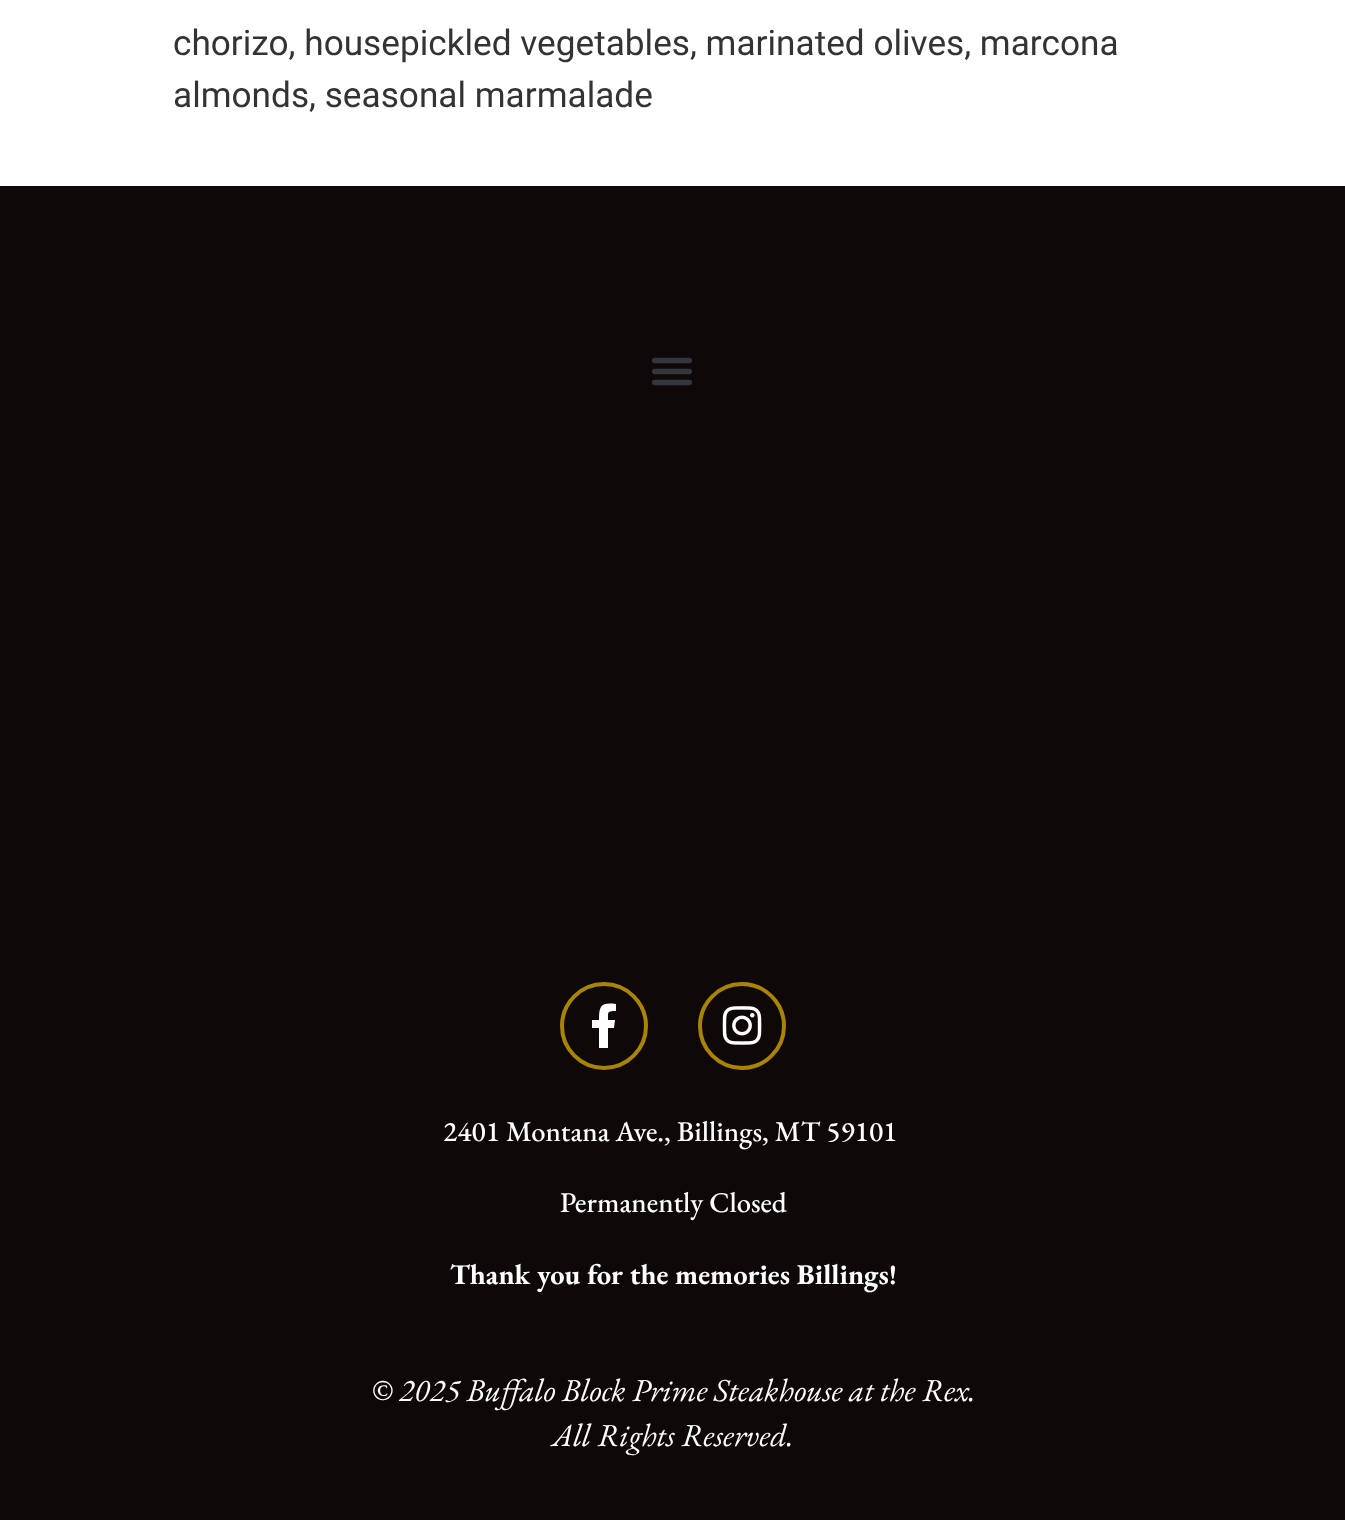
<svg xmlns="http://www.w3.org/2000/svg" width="1345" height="1520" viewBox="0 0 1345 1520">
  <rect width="100%" height="100%" fill="rgb(255,255,255)"/>
  <g font-family="Roboto" font-size="35.2" fill="rgb(51,51,51)">
    <text>
      <tspan x="173" y="55">chorizo, housepickled vegetables, marinated olives, marcona</tspan>
      <tspan x="173" y="107">almonds, seasonal marmalade</tspan>
    </text>
  </g>
  <rect x="0" y="186" width="1345" height="1334" fill="rgb(15,8,8)"/>
  <image x="651" y="357" width="42" height="29" href="pic1.png"/>
  <circle cx="604" cy="1026" r="42" fill="none" stroke="rgb(168,132,1)" stroke-width="4"/>
  <path d="M614 1028H608V1048H599V1028H592V1020H599C599 1006 601 1002 616 1004V1011C607 1011 608 1012 608 1020H615Z" fill="rgb(255,255,255)"/>
  <circle cx="742" cy="1026" r="42" fill="none" stroke="rgb(168,132,1)" stroke-width="4"/>
  <image x="722" y="1006" width="40" height="39" href="pic2.png"/>
  <g font-family="EB Garamond" font-size="28.6" font-weight="500" fill="rgb(255,255,255)">
    <text x="443" y="1141">2401 Montana Ave., Billings, MT 59101</text>
    <text x="560" y="1212">Permanently Closed</text>
  </g>
  <text x="450" y="1284" font-family="EB Garamond" font-size="28.6" font-weight="bold" fill="rgb(255,255,255)">Thank you for the memories Billings!</text>
  <g font-family="EB Garamond" font-size="32" font-style="italic" fill="rgb(255,255,255)">
    <text x="371" y="1401">© 2025 Buffalo Block Prime Steakhouse at the Rex.</text>
    <text x="552" y="1446">All Rights Reserved.</text>
  </g>
</svg>
